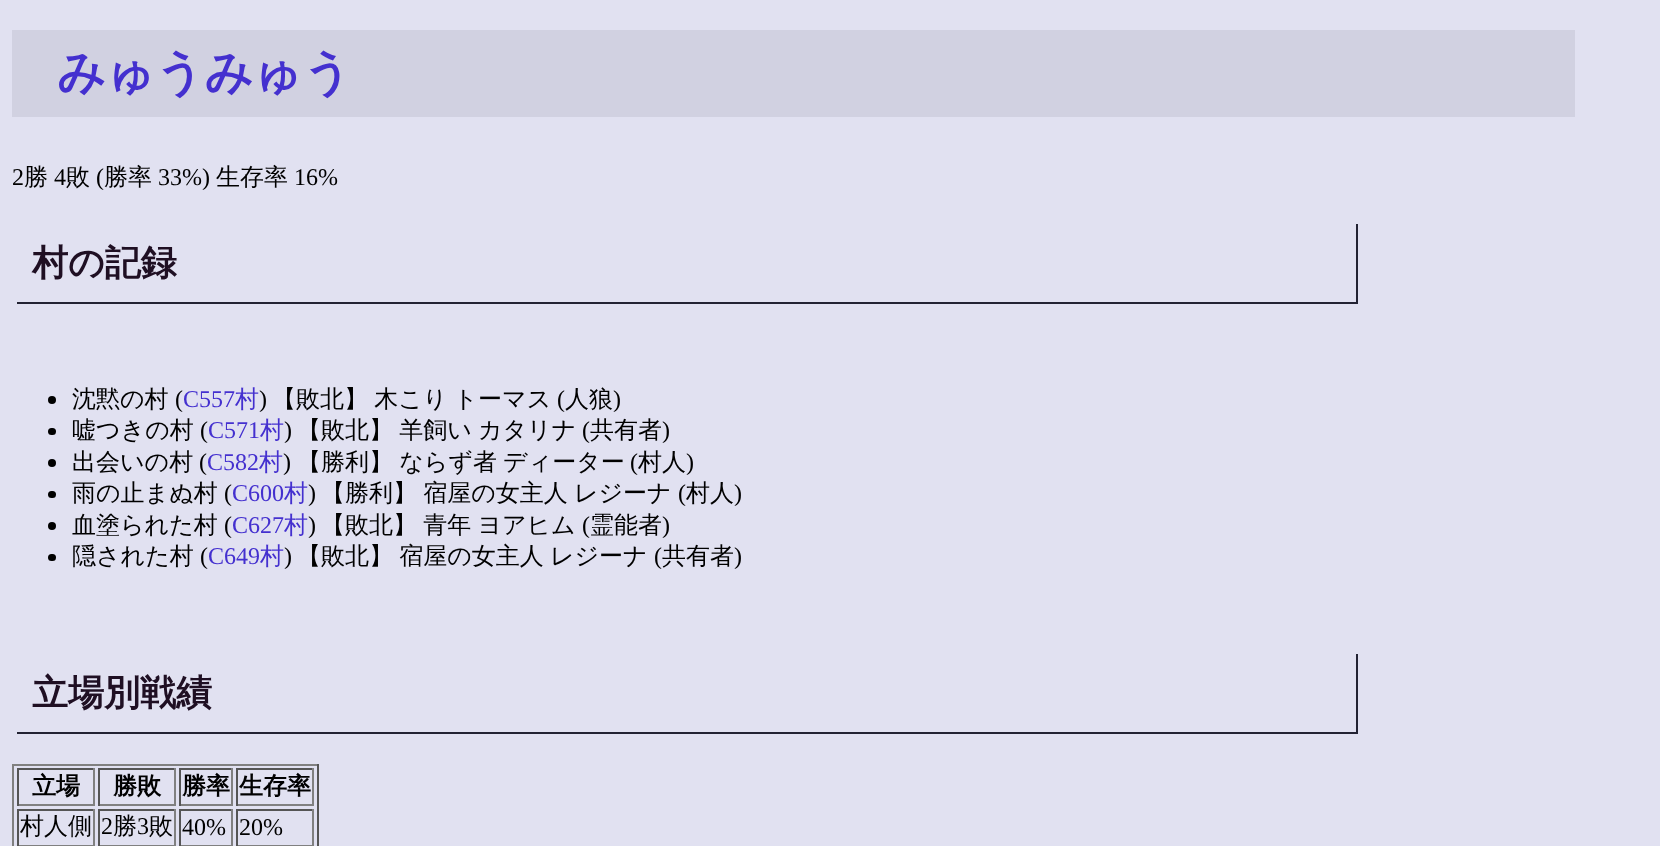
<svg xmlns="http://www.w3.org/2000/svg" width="1660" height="846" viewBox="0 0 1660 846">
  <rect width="100%" height="100%" fill="rgb(225,225,241)"/>
  <rect x="12" y="30" width="1563" height="87" fill="rgb(209,209,225)"/>
  <text x="57" y="89" font-family="WenQuanYi Zen Hei" font-size="48" font-weight="bold" fill="rgb(68,48,207)">みゅうみゅう</text>
  <text x="12" y="185" font-family="Liberation Serif" font-size="24" fill="rgb(0,0,0)">2</text>
  <text x="24" y="185" font-family="WenQuanYi Zen Hei" font-size="24" font-weight="500" fill="rgb(0,0,0)">勝</text>
  <text x="54" y="185" font-family="Liberation Serif" font-size="24" fill="rgb(0,0,0)">4</text>
  <text x="66" y="185" font-family="WenQuanYi Zen Hei" font-size="24" font-weight="500" fill="rgb(0,0,0)">敗</text>
  <text x="96" y="185" font-family="Liberation Serif" font-size="24" fill="rgb(0,0,0)">(</text>
  <text x="104" y="185" font-family="WenQuanYi Zen Hei" font-size="24" font-weight="500" fill="rgb(0,0,0)">勝率</text>
  <text x="158" y="185" font-family="Liberation Serif" font-size="24" fill="rgb(0,0,0)">33%)</text>
  <text x="216" y="185" font-family="WenQuanYi Zen Hei" font-size="24" font-weight="500" fill="rgb(0,0,0)">生存率</text>
  <text x="294" y="185" font-family="Liberation Serif" font-size="24" fill="rgb(0,0,0)">16%</text>
  <rect x="1356" y="224" width="2" height="79" fill="rgb(34,34,51)"/>
  <rect x="17" y="302" width="1341" height="2" fill="rgb(34,34,51)"/>
  <text x="32" y="275" font-family="WenQuanYi Zen Hei" font-size="36" font-weight="bold" fill="rgb(31,15,35)">村の記録</text>
  <circle cx="52" cy="400" r="4" fill="rgb(0,0,0)"/>
  <text x="72" y="407" font-family="WenQuanYi Zen Hei" font-size="24" font-weight="500" fill="rgb(0,0,0)">沈黙の村</text>
  <text x="175" y="407" font-family="Liberation Serif" font-size="24" fill="rgb(0,0,0)">(</text>
  <text x="183" y="407" font-family="Liberation Serif" font-size="24" fill="rgb(68,48,207)">C557</text>
  <text x="235" y="407" font-family="WenQuanYi Zen Hei" font-size="24" font-weight="500" fill="rgb(68,48,207)">村</text>
  <text x="259" y="407" font-family="Liberation Serif" font-size="24" fill="rgb(0,0,0)">)</text>
  <text x="272" y="407" word-spacing="-1" font-family="WenQuanYi Zen Hei" font-size="24" font-weight="500" fill="rgb(0,0,0)">【敗北】 木こり トーマス</text>
  <text x="557" y="407" font-family="Liberation Serif" font-size="24" fill="rgb(0,0,0)">(</text>
  <text x="565" y="407" font-family="WenQuanYi Zen Hei" font-size="24" font-weight="500" fill="rgb(0,0,0)">人狼</text>
  <text x="613" y="407" font-family="Liberation Serif" font-size="24" fill="rgb(0,0,0)">)</text>
  <rect x="48" y="428" width="8" height="7" rx="3.5" fill="rgb(0,0,0)"/>
  <text x="72" y="438" font-family="WenQuanYi Zen Hei" font-size="24" font-weight="500" fill="rgb(0,0,0)">嘘つきの村</text>
  <text x="200" y="438" font-family="Liberation Serif" font-size="24" fill="rgb(0,0,0)">(</text>
  <text x="208" y="438" font-family="Liberation Serif" font-size="24" fill="rgb(68,48,207)">C571</text>
  <text x="260" y="438" font-family="WenQuanYi Zen Hei" font-size="24" font-weight="500" fill="rgb(68,48,207)">村</text>
  <text x="284" y="438" font-family="Liberation Serif" font-size="24" fill="rgb(0,0,0)">)</text>
  <text x="297" y="438" word-spacing="-1" font-family="WenQuanYi Zen Hei" font-size="24" font-weight="500" fill="rgb(0,0,0)">【敗北】 羊飼い カタリナ</text>
  <text x="582" y="438" font-family="Liberation Serif" font-size="24" fill="rgb(0,0,0)">(</text>
  <text x="590" y="438" font-family="WenQuanYi Zen Hei" font-size="24" font-weight="500" fill="rgb(0,0,0)">共有者</text>
  <text x="662" y="438" font-family="Liberation Serif" font-size="24" fill="rgb(0,0,0)">)</text>
  <circle cx="52" cy="463" r="4" fill="rgb(0,0,0)"/>
  <text x="72" y="470" font-family="WenQuanYi Zen Hei" font-size="24" font-weight="500" fill="rgb(0,0,0)">出会いの村</text>
  <text x="199" y="470" font-family="Liberation Serif" font-size="24" fill="rgb(0,0,0)">(</text>
  <text x="207" y="470" font-family="Liberation Serif" font-size="24" fill="rgb(68,48,207)">C582</text>
  <text x="259" y="470" font-family="WenQuanYi Zen Hei" font-size="24" font-weight="500" fill="rgb(68,48,207)">村</text>
  <text x="283" y="470" font-family="Liberation Serif" font-size="24" fill="rgb(0,0,0)">)</text>
  <text x="297" y="470" word-spacing="-1" font-family="WenQuanYi Zen Hei" font-size="24" font-weight="500" fill="rgb(0,0,0)">【勝利】 ならず者 ディーター</text>
  <text x="630" y="470" font-family="Liberation Serif" font-size="24" fill="rgb(0,0,0)">(</text>
  <text x="638" y="470" font-family="WenQuanYi Zen Hei" font-size="24" font-weight="500" fill="rgb(0,0,0)">村人</text>
  <text x="686" y="470" font-family="Liberation Serif" font-size="24" fill="rgb(0,0,0)">)</text>
  <rect x="48" y="491" width="8" height="7" rx="3.5" fill="rgb(0,0,0)"/>
  <text x="72" y="501" font-family="WenQuanYi Zen Hei" font-size="24" font-weight="500" fill="rgb(0,0,0)">雨の止まぬ村</text>
  <text x="224" y="501" font-family="Liberation Serif" font-size="24" fill="rgb(0,0,0)">(</text>
  <text x="232" y="501" font-family="Liberation Serif" font-size="24" fill="rgb(68,48,207)">C600</text>
  <text x="284" y="501" font-family="WenQuanYi Zen Hei" font-size="24" font-weight="500" fill="rgb(68,48,207)">村</text>
  <text x="308" y="501" font-family="Liberation Serif" font-size="24" fill="rgb(0,0,0)">)</text>
  <text x="321" y="501" word-spacing="-1" font-family="WenQuanYi Zen Hei" font-size="24" font-weight="500" fill="rgb(0,0,0)">【勝利】 宿屋の女主人 レジーナ</text>
  <text x="678" y="501" font-family="Liberation Serif" font-size="24" fill="rgb(0,0,0)">(</text>
  <text x="686" y="501" font-family="WenQuanYi Zen Hei" font-size="24" font-weight="500" fill="rgb(0,0,0)">村人</text>
  <text x="734" y="501" font-family="Liberation Serif" font-size="24" fill="rgb(0,0,0)">)</text>
  <circle cx="52" cy="526" r="4" fill="rgb(0,0,0)"/>
  <text x="72" y="533" font-family="WenQuanYi Zen Hei" font-size="24" font-weight="500" fill="rgb(0,0,0)">血塗られた村</text>
  <text x="224" y="533" font-family="Liberation Serif" font-size="24" fill="rgb(0,0,0)">(</text>
  <text x="232" y="533" font-family="Liberation Serif" font-size="24" fill="rgb(68,48,207)">C627</text>
  <text x="284" y="533" font-family="WenQuanYi Zen Hei" font-size="24" font-weight="500" fill="rgb(68,48,207)">村</text>
  <text x="308" y="533" font-family="Liberation Serif" font-size="24" fill="rgb(0,0,0)">)</text>
  <text x="321" y="533" word-spacing="-1" font-family="WenQuanYi Zen Hei" font-size="24" font-weight="500" fill="rgb(0,0,0)">【敗北】 青年 ヨアヒム</text>
  <text x="582" y="533" font-family="Liberation Serif" font-size="24" fill="rgb(0,0,0)">(</text>
  <text x="590" y="533" font-family="WenQuanYi Zen Hei" font-size="24" font-weight="500" fill="rgb(0,0,0)">霊能者</text>
  <text x="662" y="533" font-family="Liberation Serif" font-size="24" fill="rgb(0,0,0)">)</text>
  <rect x="48" y="554" width="8" height="7" rx="3.5" fill="rgb(0,0,0)"/>
  <text x="72" y="564" font-family="WenQuanYi Zen Hei" font-size="24" font-weight="500" fill="rgb(0,0,0)">隠された村</text>
  <text x="200" y="564" font-family="Liberation Serif" font-size="24" fill="rgb(0,0,0)">(</text>
  <text x="208" y="564" font-family="Liberation Serif" font-size="24" fill="rgb(68,48,207)">C649</text>
  <text x="260" y="564" font-family="WenQuanYi Zen Hei" font-size="24" font-weight="500" fill="rgb(68,48,207)">村</text>
  <text x="284" y="564" font-family="Liberation Serif" font-size="24" fill="rgb(0,0,0)">)</text>
  <text x="297" y="564" word-spacing="-1" font-family="WenQuanYi Zen Hei" font-size="24" font-weight="500" fill="rgb(0,0,0)">【敗北】 宿屋の女主人 レジーナ</text>
  <text x="654" y="564" font-family="Liberation Serif" font-size="24" fill="rgb(0,0,0)">(</text>
  <text x="662" y="564" font-family="WenQuanYi Zen Hei" font-size="24" font-weight="500" fill="rgb(0,0,0)">共有者</text>
  <text x="734" y="564" font-family="Liberation Serif" font-size="24" fill="rgb(0,0,0)">)</text>
  <rect x="1356" y="654" width="2" height="80" fill="rgb(34,34,51)"/>
  <rect x="17" y="732" width="1341" height="2" fill="rgb(34,34,51)"/>
  <text x="32" y="705" font-family="WenQuanYi Zen Hei" font-size="36" font-weight="bold" fill="rgb(31,15,35)">立場別戦績</text>
  <rect x="12" y="764" width="306" height="2" fill="rgb(128,128,128)"/>
  <rect x="317" y="764" width="2" height="82" fill="rgb(85,85,85)"/>
  <rect x="12" y="764" width="2" height="82" fill="rgb(128,128,128)"/>
  <rect x="17" y="768" width="78" height="2" fill="rgb(85,85,85)"/>
  <rect x="93" y="768" width="2" height="38" fill="rgb(128,128,128)"/>
  <rect x="17" y="804" width="78" height="2" fill="rgb(128,128,128)"/>
  <rect x="17" y="768" width="2" height="38" fill="rgb(85,85,85)"/>
  <text x="32" y="794" font-family="WenQuanYi Zen Hei" font-size="24" font-weight="bold" fill="rgb(0,0,0)">立場</text>
  <rect x="98" y="768" width="78" height="2" fill="rgb(85,85,85)"/>
  <rect x="174" y="768" width="2" height="38" fill="rgb(128,128,128)"/>
  <rect x="98" y="804" width="78" height="2" fill="rgb(128,128,128)"/>
  <rect x="98" y="768" width="2" height="38" fill="rgb(85,85,85)"/>
  <text x="113" y="794" font-family="WenQuanYi Zen Hei" font-size="24" font-weight="bold" fill="rgb(0,0,0)">勝敗</text>
  <rect x="179" y="768" width="54" height="2" fill="rgb(85,85,85)"/>
  <rect x="231" y="768" width="2" height="38" fill="rgb(128,128,128)"/>
  <rect x="179" y="804" width="54" height="2" fill="rgb(128,128,128)"/>
  <rect x="179" y="768" width="2" height="38" fill="rgb(85,85,85)"/>
  <text x="182" y="794" font-family="WenQuanYi Zen Hei" font-size="24" font-weight="bold" fill="rgb(0,0,0)">勝率</text>
  <rect x="236" y="768" width="78" height="2" fill="rgb(85,85,85)"/>
  <rect x="312" y="768" width="2" height="38" fill="rgb(128,128,128)"/>
  <rect x="236" y="804" width="78" height="2" fill="rgb(128,128,128)"/>
  <rect x="236" y="768" width="2" height="38" fill="rgb(85,85,85)"/>
  <text x="239" y="794" font-family="WenQuanYi Zen Hei" font-size="24" font-weight="bold" fill="rgb(0,0,0)">生存率</text>
  <rect x="17" y="809" width="78" height="2" fill="rgb(85,85,85)"/>
  <rect x="93" y="809" width="2" height="37" fill="rgb(128,128,128)"/>
  <rect x="17" y="845" width="78" height="1" fill="rgb(128,128,128)"/>
  <rect x="17" y="809" width="2" height="37" fill="rgb(85,85,85)"/>
  <text x="20" y="834" font-family="WenQuanYi Zen Hei" font-size="24" font-weight="500" fill="rgb(0,0,0)">村人側</text>
  <rect x="98" y="809" width="78" height="2" fill="rgb(85,85,85)"/>
  <rect x="174" y="809" width="2" height="37" fill="rgb(128,128,128)"/>
  <rect x="98" y="845" width="78" height="1" fill="rgb(128,128,128)"/>
  <rect x="98" y="809" width="2" height="37" fill="rgb(85,85,85)"/>
  <text x="101" y="834" font-family="Liberation Serif" font-size="24" fill="rgb(0,0,0)">2</text>
  <text x="113" y="834" font-family="WenQuanYi Zen Hei" font-size="24" font-weight="500" fill="rgb(0,0,0)">勝</text>
  <text x="137" y="834" font-family="Liberation Serif" font-size="24" fill="rgb(0,0,0)">3</text>
  <text x="149" y="834" font-family="WenQuanYi Zen Hei" font-size="24" font-weight="500" fill="rgb(0,0,0)">敗</text>
  <rect x="179" y="809" width="54" height="2" fill="rgb(85,85,85)"/>
  <rect x="231" y="809" width="2" height="37" fill="rgb(128,128,128)"/>
  <rect x="179" y="845" width="54" height="1" fill="rgb(128,128,128)"/>
  <rect x="179" y="809" width="2" height="37" fill="rgb(85,85,85)"/>
  <text x="182" y="835" font-family="Liberation Serif" font-size="24" fill="rgb(0,0,0)">40%</text>
  <rect x="236" y="809" width="78" height="2" fill="rgb(85,85,85)"/>
  <rect x="312" y="809" width="2" height="37" fill="rgb(128,128,128)"/>
  <rect x="236" y="845" width="78" height="1" fill="rgb(128,128,128)"/>
  <rect x="236" y="809" width="2" height="37" fill="rgb(85,85,85)"/>
  <text x="239" y="835" font-family="Liberation Serif" font-size="24" fill="rgb(0,0,0)">20%</text>
</svg>
